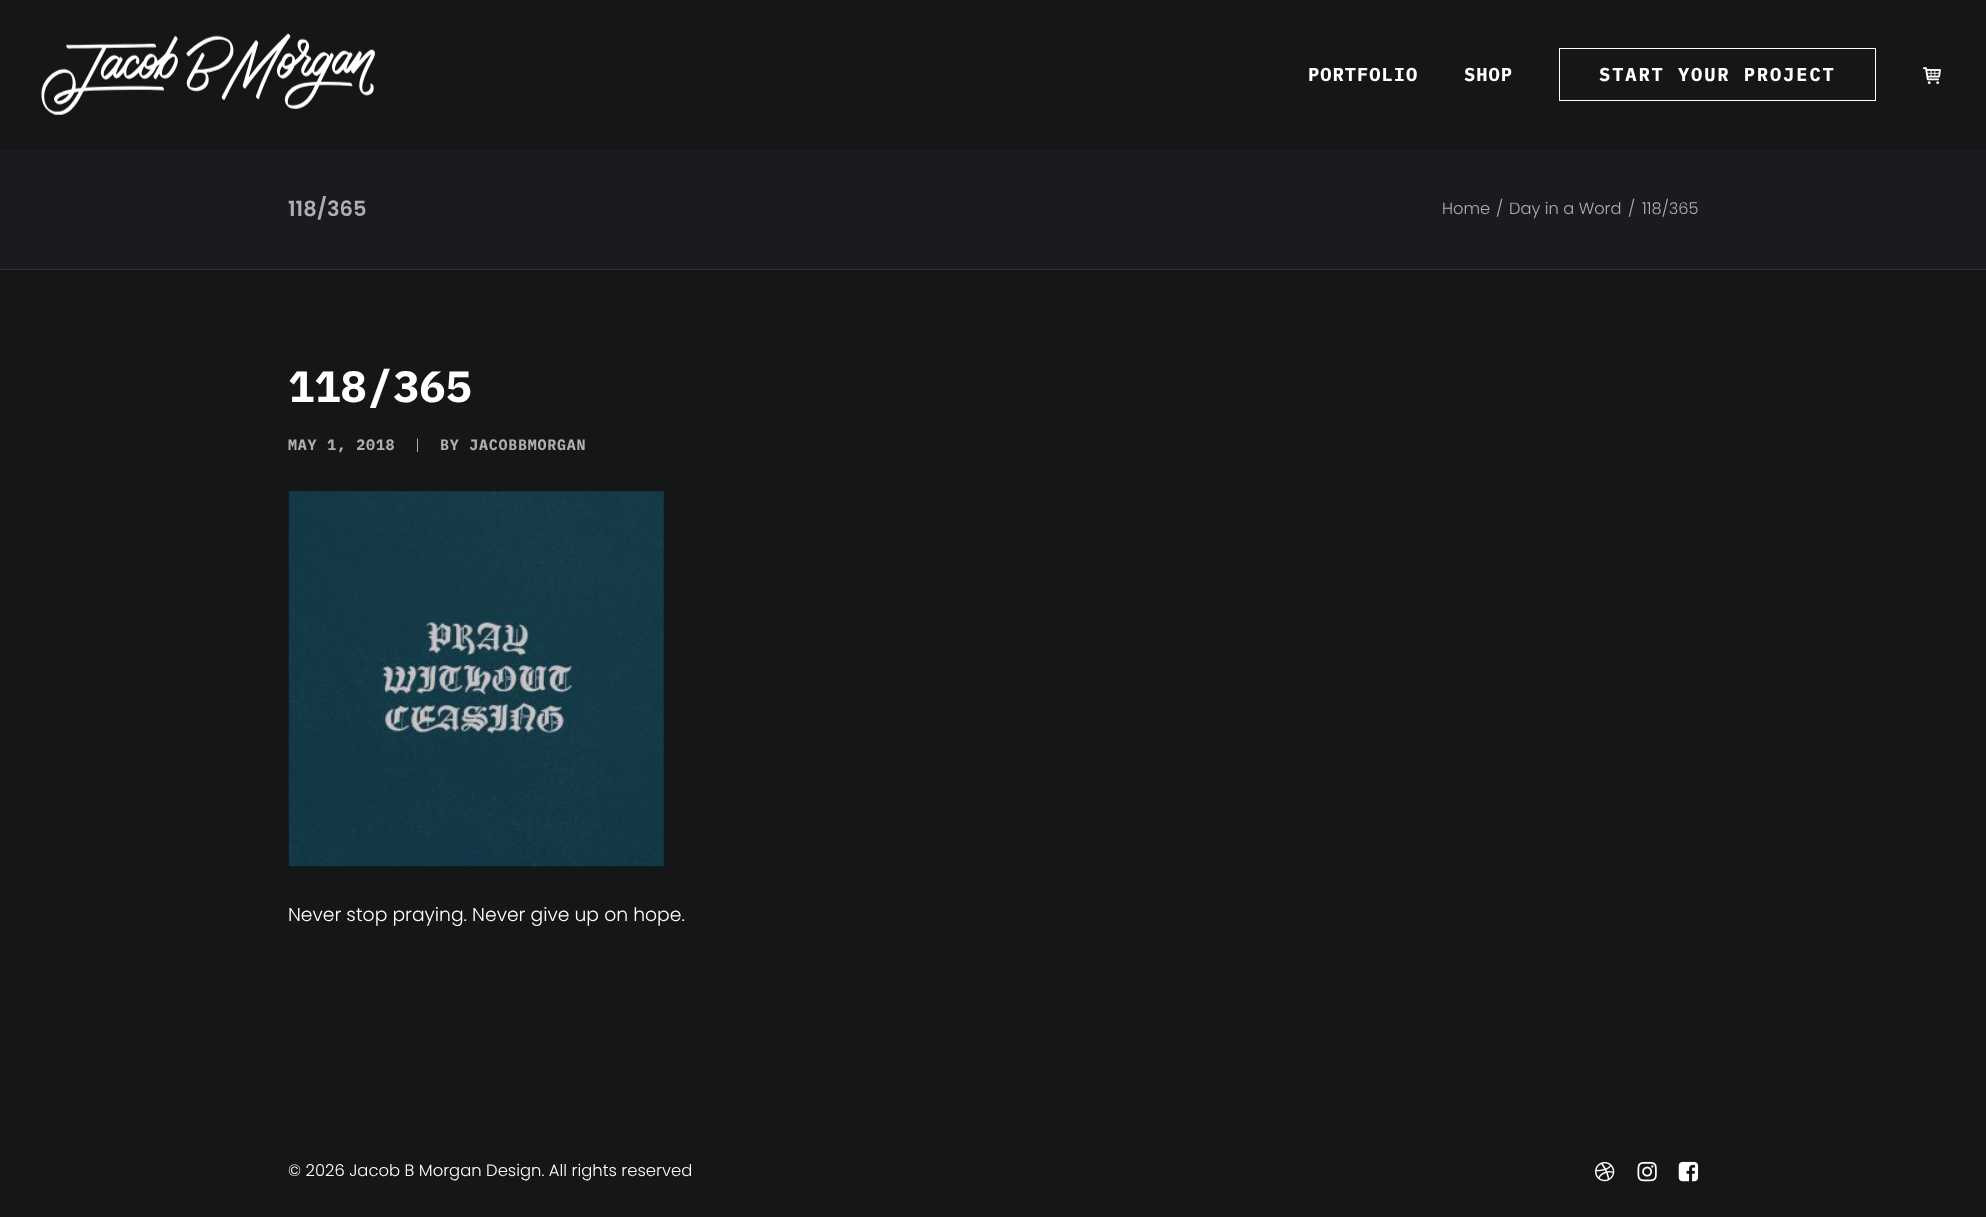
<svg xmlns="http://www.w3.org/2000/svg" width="1986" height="1217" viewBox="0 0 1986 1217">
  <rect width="100%" height="100%" fill="rgb(25,27,30)"/>
  <rect x="0" y="0" width="1986" height="150" fill="rgb(20,22,24)"/>
  <image x="41" y="33" width="334" height="82" href="pic1.png"/>
  <g font-family="IBM Plex Mono" font-size="18.75" font-weight="bold" letter-spacing="1" fill="rgb(255,255,255)">
    <text x="1308" y="81">PORTFOLIO</text>
    <text x="1464" y="81">SHOP</text>
  </g>
  <rect x="1559.5" y="48.5" width="316" height="52" fill="none" stroke="rgb(255,255,255)"/>
  <text x="1599" y="81" font-family="IBM Plex Mono" font-size="18.75" font-weight="bold" letter-spacing="1.9" fill="rgb(255,255,255)">START YOUR PROJECT</text>
  <image x="1922" y="67" width="19" height="18" href="pic2.png"/>
  <rect x="0" y="269" width="1986" height="1" fill="rgb(48,49,51)"/>
  <text x="288" y="216" font-family="Poppins" font-size="21" font-weight="600" fill="rgb(175,175,176)">118/365</text>
  <g font-family="Poppins" font-size="16.25" font-weight="300" fill="rgb(175,175,176)">
    <text x="1442" y="214">Home</text>
    <text x="1496" y="214">/</text>
    <text x="1509" y="214">Day in a Word</text>
    <text x="1628" y="214">/</text>
    <text x="1642" y="214">118/365</text>
  </g>
  <rect x="0" y="270" width="1986" height="947" fill="rgb(20,22,24)"/>
  <text x="288" y="402" font-family="IBM Plex Mono" font-size="43.75" font-weight="bold" fill="rgb(255,255,255)">118/365</text>
  <text x="288" y="450" font-family="IBM Plex Mono" font-size="15" font-weight="bold" letter-spacing="0.75" fill="rgb(175,175,176)">MAY 1, 2018</text>
  <text x="413" y="450" font-family="IBM Plex Mono" font-size="15" letter-spacing="0.75" fill="rgb(175,175,176)">|</text>
  <text x="440" y="450" font-family="IBM Plex Mono" font-size="15" font-weight="bold" letter-spacing="0.75" fill="rgb(175,175,176)">BY JACOBBMORGAN</text>
  <image x="288" y="491" width="376" height="376" href="pic3.png"/>
  <text x="288" y="921" font-family="Poppins" font-size="18.75" font-weight="300" fill="rgb(255,255,255)">Never stop praying. Never give up on hope.</text>
  <text x="288" y="1176" font-family="Poppins" font-size="16.4" font-weight="300" fill="rgb(255,255,255)">© 2026 Jacob B Morgan Design. All rights reserved</text>
  <image x="1595" y="1162" width="20" height="20" href="pic4.png"/>
  <image x="1637" y="1161" width="20" height="21" href="pic5.png"/>
  <image x="1678" y="1161" width="21" height="21" href="pic6.png"/>
</svg>
